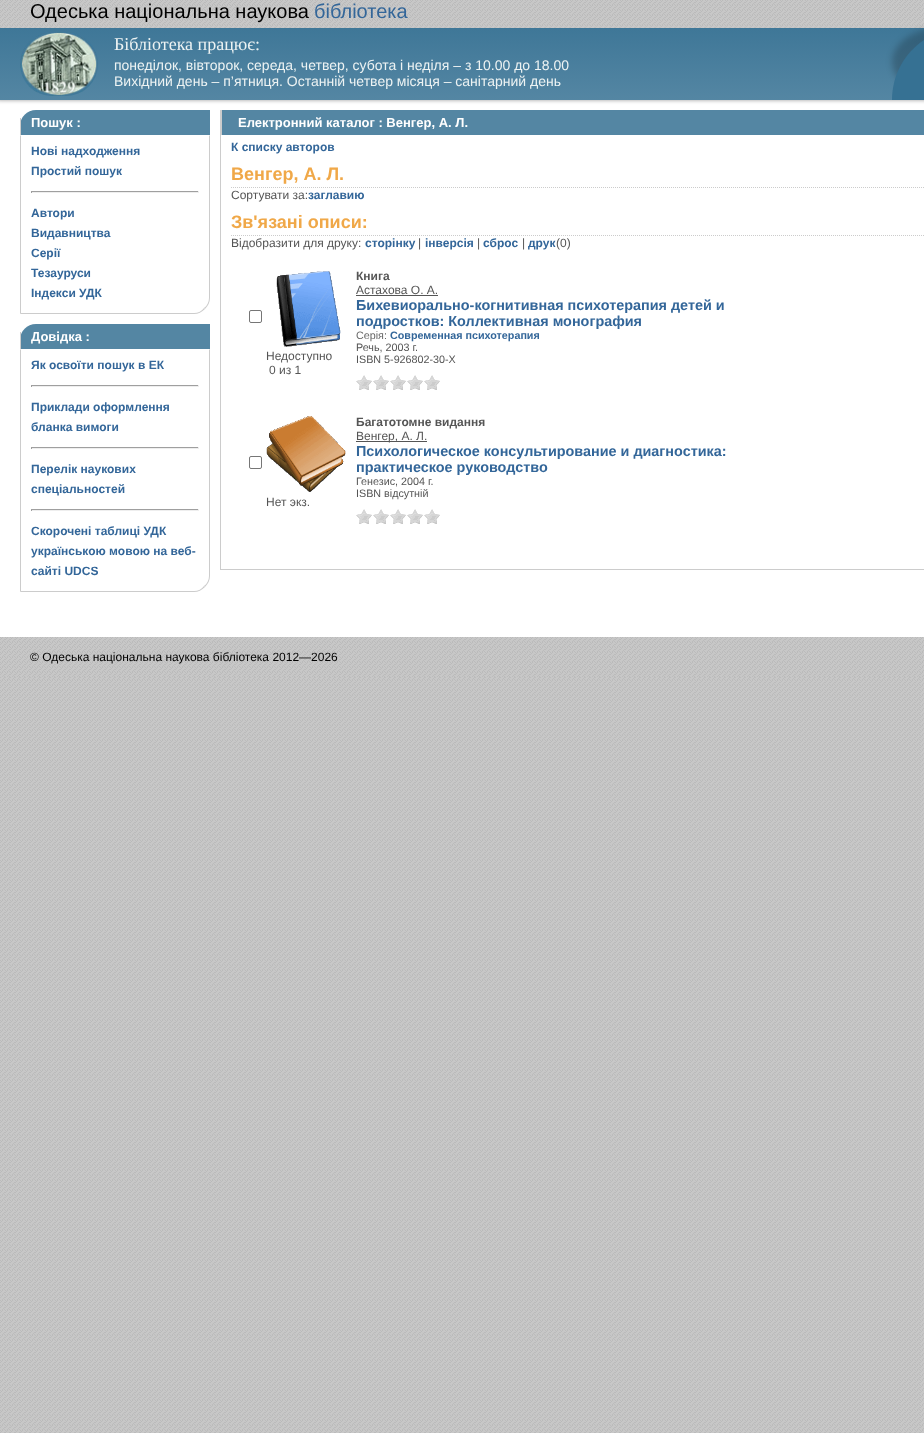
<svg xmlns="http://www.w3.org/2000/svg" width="924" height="1433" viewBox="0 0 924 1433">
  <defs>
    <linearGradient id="g1" gradientUnits="userSpaceOnUse" x1="600" y1="0" x2="600" y2="100"><stop offset="0" stop-color="rgb(54,113,147)"/><stop offset="1" stop-color="rgb(84,134,163)"/></linearGradient>
  </defs>
  <rect width="100%" height="100%" fill="rgb(255,255,255)"/>
  <image x="0" y="677" width="924" height="756" href="pic1.png"/>
  <rect x="-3" y="0" width="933" height="100" fill="rgb(153,153,153)" filter="blur(2px)"/>
  <rect x="0" y="28" width="924" height="72" fill="url(#g1)"/>
  <image x="0" y="0" width="924" height="28" href="pic2.png"/>
  <text x="30" y="18" font-family="Liberation Sans" font-size="20" fill="rgb(0,0,0)">Одеська національна наукова</text>
  <text x="314" y="18" font-family="Liberation Sans" font-size="20" fill="rgb(51,102,153)">бібліотека</text>
  <image x="20" y="32" width="78" height="64" href="pic3.png"/>
  <text x="114" y="50" font-family="Liberation Serif" font-size="18" fill="rgb(237,243,243)">Бібліотека працює:</text>
  <g font-family="Liberation Sans" font-size="14" fill="rgb(237,243,243)">
    <text>
      <tspan x="114" y="70">понеділок, вівторок, середа, четвер, субота і неділя – з 10.00 до 18.00</tspan>
      <tspan x="114" y="86">Вихідний день – п’ятниця. Останній четвер місяця – санітарний день</tspan>
    </text>
  </g>
  <rect x="892" y="26" width="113" height="72" rx="72" fill="rgba(0,0,0,0.2)" filter="blur(3px)"/>
  <path d="M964 28H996V100H892C892 60 924 28 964 28Z" fill="rgb(54,113,147)"/>
  <path d="M36 110H210V135H20V126C20 117 27 110 36 110Z" fill="rgb(84,134,163)"/>
  <rect x="20" y="118" width="1" height="17" fill="rgb(204,204,204)"/>
  <text x="31" y="127" font-family="Liberation Sans" font-size="13" font-weight="bold" fill="rgb(255,255,255)">Пошук :</text>
  <path d="M210 135L209 136V298C209 302 207 306 204 308L205 309C208 306 210 302 210 298Z" fill="rgb(204,204,204)"/>
  <path d="M194 314C198 314 202 312 205 309L204 308C202 311 198 313 194 313H21L20 314Z" fill="rgb(204,204,204)"/>
  <path d="M20 135V314L21 313V136Z" fill="rgb(204,204,204)"/>
  <g font-family="Liberation Sans" font-size="12" font-weight="bold" fill="rgb(51,102,153)">
    <text>
      <tspan x="31" y="155">Нові надходження</tspan>
      <tspan x="31" y="175">Простий пошук</tspan>
    </text>
  </g>
  <rect x="31" y="191" width="168" height="1" fill="rgb(159,159,159)"/>
  <rect x="198" y="191" width="1" height="2" fill="rgb(238,238,238)"/>
  <rect x="31" y="192" width="168" height="1" fill="rgb(238,238,238)"/>
  <rect x="31" y="191" width="1" height="2" fill="rgb(159,159,159)"/>
  <g font-family="Liberation Sans" font-size="12" font-weight="bold" fill="rgb(51,102,153)">
    <text>
      <tspan x="31" y="217">Автори</tspan>
      <tspan x="31" y="237">Видавництва</tspan>
      <tspan x="31" y="257">Серії</tspan>
      <tspan x="31" y="277">Тезауруси</tspan>
      <tspan x="31" y="297">Індекси УДК</tspan>
    </text>
  </g>
  <path d="M36 324H210V349H20V340C20 331 27 324 36 324Z" fill="rgb(84,134,163)"/>
  <rect x="20" y="332" width="1" height="17" fill="rgb(204,204,204)"/>
  <text x="31" y="341" font-family="Liberation Sans" font-size="13" font-weight="bold" fill="rgb(255,255,255)">Довідка :</text>
  <path d="M210 349L209 350V576C209 580 207 584 204 586L205 587C208 584 210 580 210 576Z" fill="rgb(204,204,204)"/>
  <path d="M194 592C198 592 202 590 205 587L204 586C202 589 198 591 194 591H21L20 592Z" fill="rgb(204,204,204)"/>
  <path d="M21 350L20 349V592L21 591Z" fill="rgb(204,204,204)"/>
  <text x="31" y="369" font-family="Liberation Sans" font-size="12" font-weight="bold" fill="rgb(51,102,153)">Як освоїти пошук в ЕК</text>
  <rect x="31" y="385" width="168" height="1" fill="rgb(159,159,159)"/>
  <rect x="198" y="385" width="1" height="2" fill="rgb(238,238,238)"/>
  <rect x="31" y="386" width="168" height="1" fill="rgb(238,238,238)"/>
  <rect x="31" y="385" width="1" height="2" fill="rgb(159,159,159)"/>
  <g font-family="Liberation Sans" font-size="12" font-weight="bold" fill="rgb(51,102,153)">
    <text>
      <tspan x="31" y="411">Приклади оформлення</tspan>
      <tspan x="31" y="431">бланка вимоги</tspan>
    </text>
  </g>
  <rect x="31" y="447" width="168" height="1" fill="rgb(159,159,159)"/>
  <rect x="198" y="447" width="1" height="2" fill="rgb(238,238,238)"/>
  <rect x="31" y="448" width="168" height="1" fill="rgb(238,238,238)"/>
  <rect x="31" y="447" width="1" height="2" fill="rgb(159,159,159)"/>
  <g font-family="Liberation Sans" font-size="12" font-weight="bold" fill="rgb(51,102,153)">
    <text>
      <tspan x="31" y="473">Перелік наукових</tspan>
      <tspan x="31" y="493">спеціальностей</tspan>
    </text>
  </g>
  <rect x="31" y="509" width="168" height="1" fill="rgb(159,159,159)"/>
  <rect x="198" y="509" width="1" height="2" fill="rgb(238,238,238)"/>
  <rect x="31" y="510" width="168" height="1" fill="rgb(238,238,238)"/>
  <rect x="31" y="509" width="1" height="2" fill="rgb(159,159,159)"/>
  <g font-family="Liberation Sans" font-size="12" font-weight="bold" fill="rgb(51,102,153)">
    <text>
      <tspan x="31" y="535">Скорочені таблиці УДК</tspan>
      <tspan x="31" y="555">українською мовою на веб-</tspan>
      <tspan x="31" y="575">сайті UDCS</tspan>
    </text>
  </g>
  <rect x="220" y="569" width="704" height="1" fill="rgb(204,204,204)"/>
  <rect x="220" y="110" width="1" height="460" fill="rgb(204,204,204)"/>
  <rect x="222" y="110" width="702" height="25" fill="rgb(84,134,163)"/>
  <rect x="221" y="110" width="1" height="25" fill="rgb(204,204,204)"/>
  <text x="238" y="127" font-family="Liberation Sans" font-size="13" font-weight="bold" fill="rgb(255,255,255)">Електронний каталог : Венгер, А. Л.</text>
  <text x="231" y="151" font-family="Liberation Sans" font-size="12" font-weight="bold" fill="rgb(51,102,153)">К списку авторов</text>
  <path d="M231 187.5H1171" fill="none" stroke="rgb(204,204,204)" stroke-dasharray="1 1"/>
  <text x="231" y="180" font-family="Liberation Sans" font-size="18" font-weight="bold" fill="rgb(240,168,72)">Венгер, А. Л.</text>
  <text x="231" y="199" font-family="Liberation Sans" font-size="12" fill="rgb(85,85,85)">Сортувати за:</text>
  <text x="308" y="199" font-family="Liberation Sans" font-size="12" font-weight="bold" fill="rgb(51,102,153)">заглавию</text>
  <path d="M231 235.5H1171" fill="none" stroke="rgb(204,204,204)" stroke-dasharray="1 1"/>
  <text x="231" y="228" font-family="Liberation Sans" font-size="18" font-weight="bold" fill="rgb(240,168,72)">Зв'язані описи:</text>
  <text x="231" y="247" font-family="Liberation Sans" font-size="12" fill="rgb(85,85,85)">Відобразити для друку:</text>
  <text x="365" y="247" font-family="Liberation Sans" font-size="12" font-weight="bold" fill="rgb(51,102,153)">сторінку</text>
  <text x="418" y="247" font-family="Liberation Sans" font-size="12" fill="rgb(85,85,85)">|</text>
  <text x="425" y="247" font-family="Liberation Sans" font-size="12" font-weight="bold" fill="rgb(51,102,153)">інверсія</text>
  <text x="477" y="247" font-family="Liberation Sans" font-size="12" fill="rgb(85,85,85)">|</text>
  <text x="483" y="247" font-family="Liberation Sans" font-size="12" font-weight="bold" fill="rgb(51,102,153)">сброс</text>
  <text x="522" y="247" font-family="Liberation Sans" font-size="12" fill="rgb(85,85,85)">|</text>
  <text x="528" y="247" font-family="Liberation Sans" font-size="12" font-weight="bold" fill="rgb(51,102,153)">друк</text>
  <text x="556" y="247" font-family="Liberation Sans" font-size="12" fill="rgb(85,85,85)">(0)</text>
  <rect x="249.5" y="310.5" width="12" height="12" rx="1.5" fill="none" stroke="rgb(118,118,118)"/>
  <image x="276" y="271" width="65" height="76" href="pic4.png"/>
  <g font-family="Liberation Sans" font-size="12" fill="rgb(85,85,85)">
    <text x="266" y="360">Недоступно</text>
    <text x="269" y="374">0 из 1</text>
  </g>
  <text x="356" y="280" font-family="Liberation Sans" font-size="12" font-weight="bold" fill="rgb(85,85,85)">Книга</text>
  <text x="356" y="294" font-family="Liberation Sans" font-size="12" fill="rgb(85,85,85)">Астахова О. А.</text>
  <rect x="356" y="295" width="82" height="1" fill="rgb(85,85,85)"/>
  <g font-family="Liberation Sans" font-size="14.4" font-weight="bold" fill="rgb(51,102,153)">
    <text>
      <tspan x="356" y="310">Бихевиорально-когнитивная психотерапия детей и</tspan>
      <tspan x="356" y="326">подростков: Коллективная монография</tspan>
    </text>
  </g>
  <text x="356" y="339" font-family="Liberation Sans" font-size="10.75" fill="rgb(102,102,102)">Серія:</text>
  <text x="390" y="339" font-family="Liberation Sans" font-size="10.75" font-weight="bold" fill="rgb(51,102,153)">Современная психотерапия</text>
  <g font-family="Liberation Sans" font-size="10.75" fill="rgb(85,85,85)">
    <text>
      <tspan x="356" y="351">Речь, 2003 г.</tspan>
      <tspan x="356" y="363">ISBN 5-926802-30-X</tspan>
    </text>
  </g>
  <image x="356" y="375" width="16" height="15" href="pic5.png"/>
  <image x="373" y="375" width="16" height="15" href="pic5.png"/>
  <image x="390" y="375" width="16" height="15" href="pic5.png"/>
  <image x="407" y="375" width="16" height="15" href="pic5.png"/>
  <image x="424" y="375" width="16" height="15" href="pic5.png"/>
  <text x="356" y="426" font-family="Liberation Sans" font-size="12" font-weight="bold" fill="rgb(85,85,85)">Багатотомне видання</text>
  <rect x="356" y="441" width="71" height="1" fill="rgb(85,85,85)"/>
  <text x="356" y="440" font-family="Liberation Sans" font-size="12" fill="rgb(85,85,85)">Венгер, А. Л.</text>
  <g font-family="Liberation Sans" font-size="14.4" font-weight="bold" fill="rgb(51,102,153)">
    <text>
      <tspan x="356" y="456">Психологическое консультирование и диагностика:</tspan>
      <tspan x="356" y="472">практическое руководство</tspan>
    </text>
  </g>
  <g font-family="Liberation Sans" font-size="10.75" fill="rgb(85,85,85)">
    <text>
      <tspan x="356" y="485">Генезис, 2004 г.</tspan>
      <tspan x="356" y="497">ISBN відсутній</tspan>
    </text>
  </g>
  <image x="356" y="509" width="16" height="15" href="pic5.png"/>
  <image x="373" y="509" width="16" height="15" href="pic5.png"/>
  <image x="390" y="509" width="16" height="15" href="pic5.png"/>
  <image x="407" y="509" width="16" height="15" href="pic5.png"/>
  <image x="424" y="509" width="16" height="15" href="pic5.png"/>
  <rect x="249.5" y="456.5" width="12" height="12" rx="1.5" fill="none" stroke="rgb(118,118,118)"/>
  <image x="266" y="416" width="80" height="76" href="pic6.png"/>
  <text x="266" y="506" font-family="Liberation Sans" font-size="12" fill="rgb(85,85,85)">Нет экз.</text>
  <image x="0" y="637" width="924" height="40" href="pic7.png"/>
  <text x="30" y="661" font-family="Liberation Sans" font-size="12" fill="rgb(0,0,0)">© Одеська національна наукова бібліотека 2012—2026</text>
</svg>
